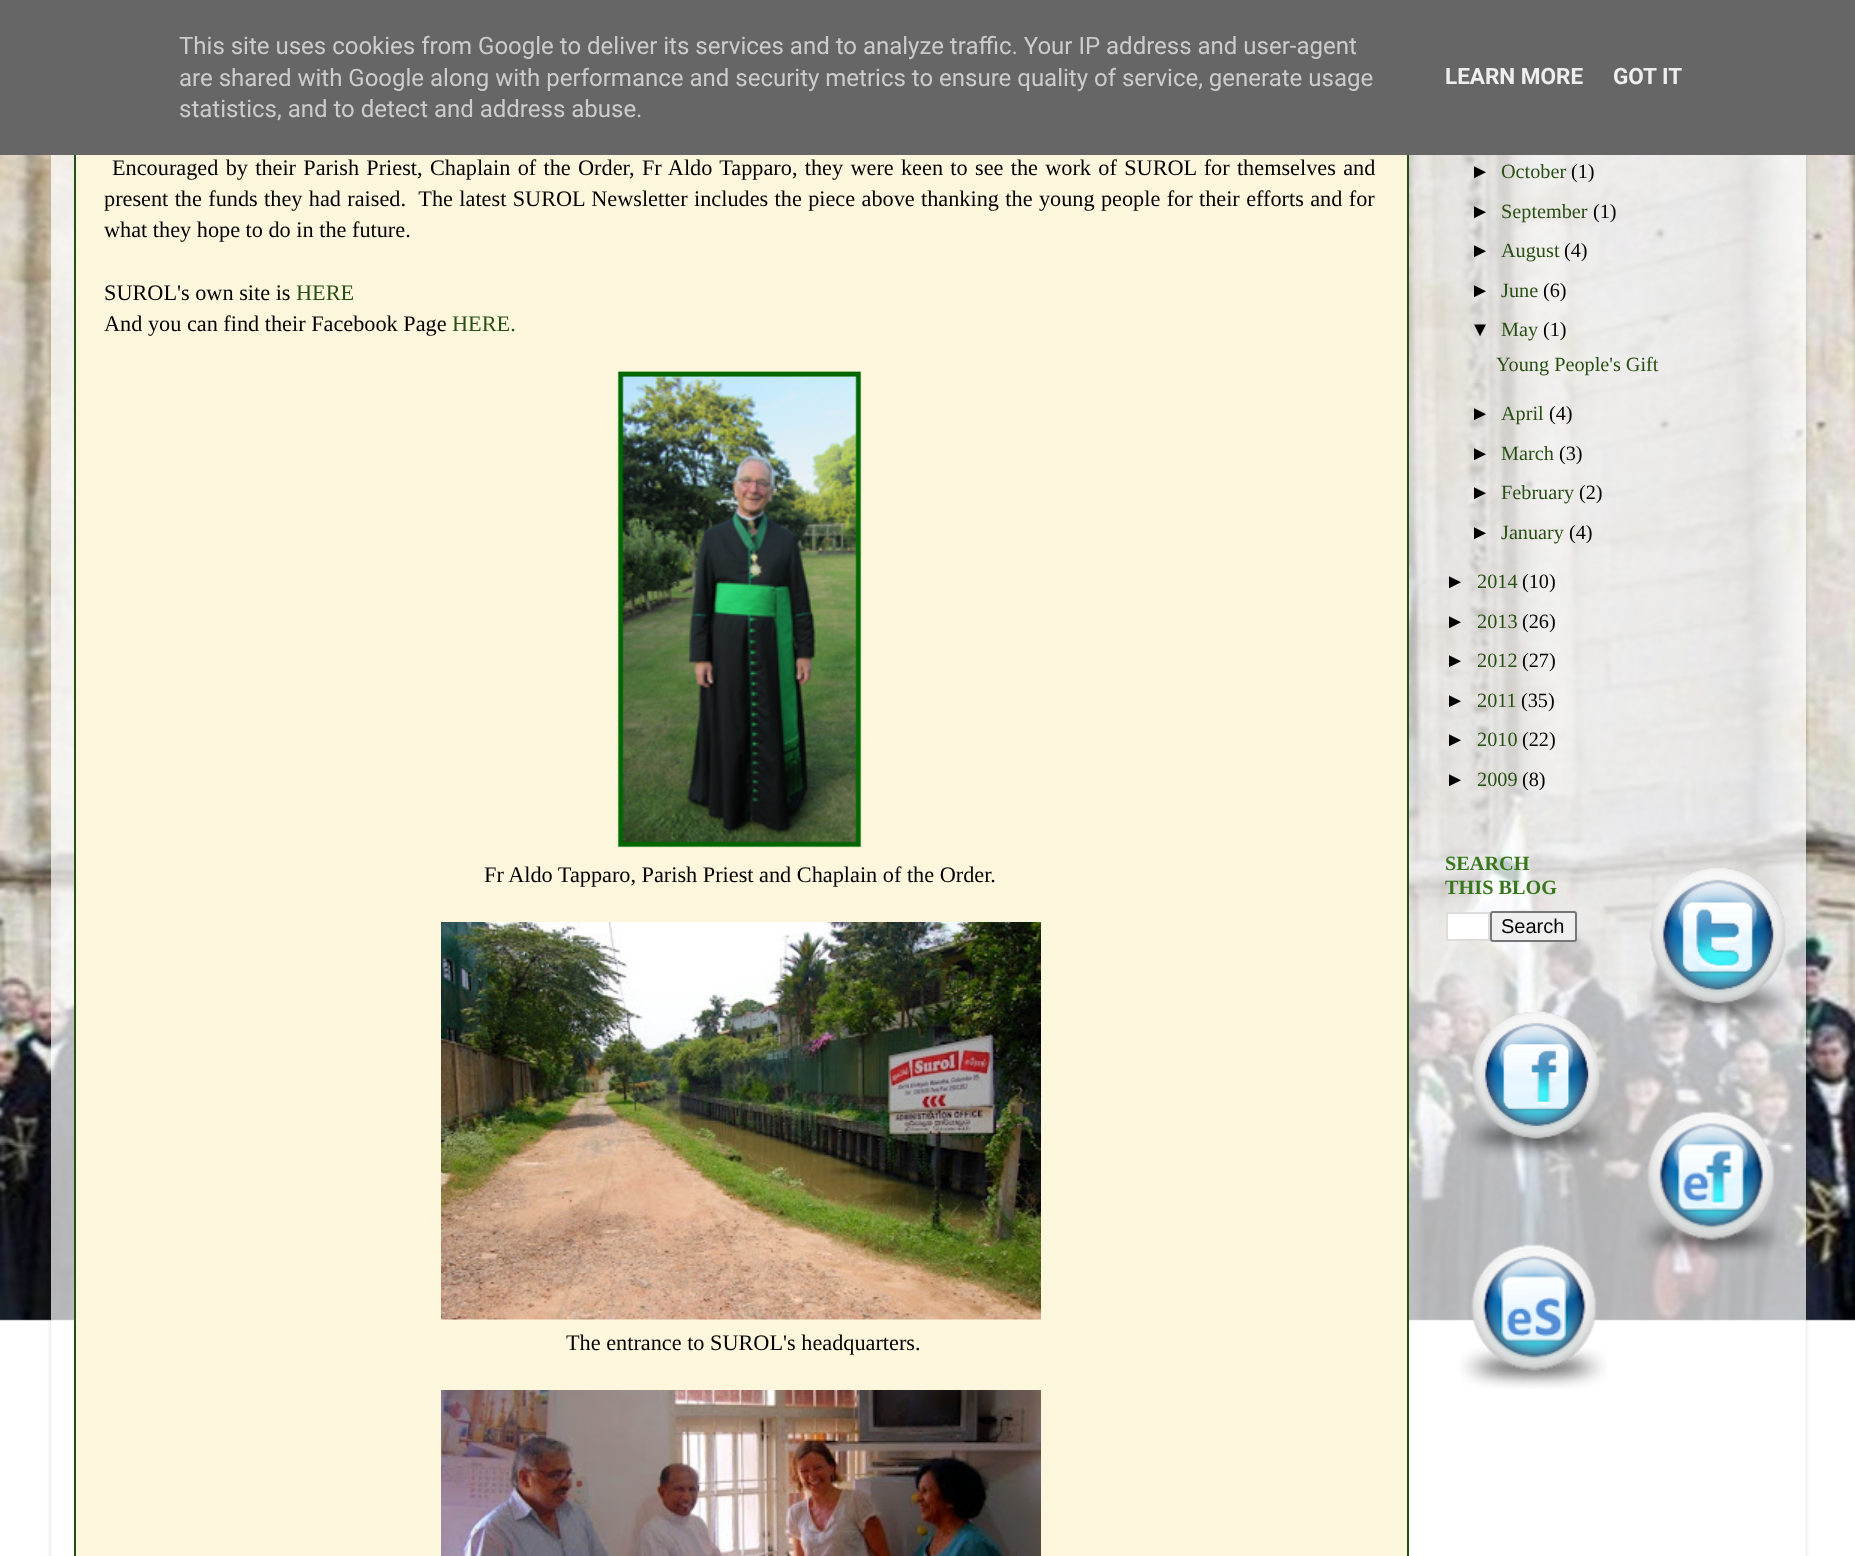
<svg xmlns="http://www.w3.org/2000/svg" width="1855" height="1556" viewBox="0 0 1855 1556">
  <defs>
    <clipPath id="clip1"><path d="M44 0H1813V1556H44ZM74-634H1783C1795.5-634 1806-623.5 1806-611V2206C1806 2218.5 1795.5 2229 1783 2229H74C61.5 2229 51 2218.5 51 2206V-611C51-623.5 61.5-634 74-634Z" clip-rule="evenodd"/></clipPath>
  </defs>
  <rect width="100%" height="100%" fill="rgb(255,255,255)"/>
  <image x="0" y="155" width="1855" height="1166" href="pic1.png"/>
  <g clip-path="url(#clip1)">
    <rect x="51" y="-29" width="1755" height="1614" rx="23" fill="rgba(0,0,0,0.15)" filter="blur(2px)"/>
  </g>
  <rect x="76" y="155" width="1331" height="1401" fill="rgb(252,246,221)"/>
  <rect x="75" y="-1" width="1333" height="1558" fill="none" stroke="rgb(39,78,19)" stroke-width="2"/>
  <rect x="0" y="0" width="1855" height="155" fill="rgb(102,102,102)"/>
  <g font-family="Roboto" font-size="24" fill="rgb(204,204,204)">
    <text>
      <tspan x="179" y="54">This site uses cookies from Google to deliver its services and to analyze traffic. Your IP address and user-agent</tspan>
      <tspan x="179" y="86">are shared with Google along with performance and security metrics to ensure quality of service, generate usage</tspan>
      <tspan x="179" y="117">statistics, and to detect and address abuse.</tspan>
    </text>
  </g>
  <g font-family="Roboto" font-size="22.5" font-weight="bold" fill="rgb(238,238,238)">
    <text x="1445" y="84">LEARN MORE</text>
    <text x="1613" y="84">GOT IT</text>
  </g>
  <g font-family="Liberation Serif" font-size="22.27" fill="rgb(0,0,0)">
    <text x="112" y="175" word-spacing="1.75">Encouraged by their Parish Priest, Chaplain of the Order, Fr Aldo Tapparo, they were keen to see the work of SUROL for themselves and</text>
    <text xml:space="preserve"><tspan x="104" y="206" word-spacing="0.8">present the funds they had raised.  The latest SUROL Newsletter includes the piece above thanking the young people for their efforts and for</tspan><tspan x="104" y="237">what they hope to do in the future.</tspan></text>
    <text x="104" y="300">SUROL's own site is</text>
  </g>
  <text x="296" y="300" font-family="Liberation Serif" font-size="22.27" fill="rgb(39,78,19)">HERE</text>
  <text x="104" y="331" font-family="Liberation Serif" font-size="22.27" fill="rgb(0,0,0)">And you can find their Facebook Page</text>
  <text x="452" y="331" font-family="Liberation Serif" font-size="22.27" fill="rgb(39,78,19)">HERE.</text>
  <image x="617" y="371" width="245" height="477" href="pic2.png"/>
  <text x="484" y="882" font-family="Liberation Serif" font-size="22.27" fill="rgb(0,0,0)">Fr Aldo Tapparo, Parish Priest and Chaplain of the Order.</text>
  <image x="441" y="922" width="600" height="398" href="pic3.png"/>
  <text x="566" y="1350" font-family="Liberation Serif" font-size="22.27" fill="rgb(0,0,0)">The entrance to SUROL's headquarters.</text>
  <image x="441" y="1390" width="600" height="166" href="pic4.png"/>
  <text x="1470" y="178" font-family="Liberation Sans" font-size="20.25" fill="rgb(0,0,0)">►</text>
  <text x="1501" y="178" font-family="Liberation Serif" font-size="20.25" fill="rgb(39,78,19)">October</text>
  <text x="1571" y="178" font-family="Liberation Serif" font-size="20.25" fill="rgb(0,0,0)">(1)</text>
  <text x="1470" y="218" font-family="Liberation Sans" font-size="20.25" fill="rgb(0,0,0)">►</text>
  <text x="1501" y="218" font-family="Liberation Serif" font-size="20.25" fill="rgb(39,78,19)">September</text>
  <text x="1593" y="218" font-family="Liberation Serif" font-size="20.25" fill="rgb(0,0,0)">(1)</text>
  <text x="1470" y="257" font-family="Liberation Sans" font-size="20.25" fill="rgb(0,0,0)">►</text>
  <text x="1501" y="257" font-family="Liberation Serif" font-size="20.25" fill="rgb(39,78,19)">August</text>
  <text x="1564" y="257" font-family="Liberation Serif" font-size="20.25" fill="rgb(0,0,0)">(4)</text>
  <text x="1470" y="297" font-family="Liberation Sans" font-size="20.25" fill="rgb(0,0,0)">►</text>
  <text x="1501" y="297" font-family="Liberation Serif" font-size="20.25" fill="rgb(39,78,19)">June</text>
  <text x="1543" y="297" font-family="Liberation Serif" font-size="20.25" fill="rgb(0,0,0)">(6)</text>
  <text x="1470" y="336" font-family="Liberation Sans" font-size="20.25" fill="rgb(0,0,0)">▼</text>
  <text x="1501" y="336" font-family="Liberation Serif" font-size="20.25" fill="rgb(39,78,19)">May</text>
  <text x="1543" y="336" font-family="Liberation Serif" font-size="20.25" fill="rgb(0,0,0)">(1)</text>
  <text x="1496" y="371" font-family="Liberation Serif" font-size="20.25" fill="rgb(39,78,19)">Young People's Gift</text>
  <text x="1470" y="420" font-family="Liberation Sans" font-size="20.25" fill="rgb(0,0,0)">►</text>
  <text x="1501" y="420" font-family="Liberation Serif" font-size="20.25" fill="rgb(39,78,19)">April</text>
  <text x="1549" y="420" font-family="Liberation Serif" font-size="20.25" fill="rgb(0,0,0)">(4)</text>
  <text x="1470" y="460" font-family="Liberation Sans" font-size="20.25" fill="rgb(0,0,0)">►</text>
  <text x="1501" y="460" font-family="Liberation Serif" font-size="20.25" fill="rgb(39,78,19)">March</text>
  <text x="1559" y="460" font-family="Liberation Serif" font-size="20.25" fill="rgb(0,0,0)">(3)</text>
  <text x="1470" y="499" font-family="Liberation Sans" font-size="20.25" fill="rgb(0,0,0)">►</text>
  <text x="1501" y="499" font-family="Liberation Serif" font-size="20.25" fill="rgb(39,78,19)">February</text>
  <text x="1579" y="499" font-family="Liberation Serif" font-size="20.25" fill="rgb(0,0,0)">(2)</text>
  <text x="1470" y="539" font-family="Liberation Sans" font-size="20.25" fill="rgb(0,0,0)">►</text>
  <text x="1501" y="539" font-family="Liberation Serif" font-size="20.25" fill="rgb(39,78,19)">January</text>
  <text x="1569" y="539" font-family="Liberation Serif" font-size="20.25" fill="rgb(0,0,0)">(4)</text>
  <text x="1445" y="588" font-family="Liberation Sans" font-size="20.25" fill="rgb(0,0,0)">►</text>
  <text x="1477" y="588" font-family="Liberation Serif" font-size="20.25" fill="rgb(39,78,19)">2014</text>
  <text x="1522" y="588" font-family="Liberation Serif" font-size="20.25" fill="rgb(0,0,0)">(10)</text>
  <text x="1445" y="628" font-family="Liberation Sans" font-size="20.25" fill="rgb(0,0,0)">►</text>
  <text x="1477" y="628" font-family="Liberation Serif" font-size="20.25" fill="rgb(39,78,19)">2013</text>
  <text x="1522" y="628" font-family="Liberation Serif" font-size="20.25" fill="rgb(0,0,0)">(26)</text>
  <text x="1445" y="667" font-family="Liberation Sans" font-size="20.25" fill="rgb(0,0,0)">►</text>
  <text x="1477" y="667" font-family="Liberation Serif" font-size="20.25" fill="rgb(39,78,19)">2012</text>
  <text x="1522" y="667" font-family="Liberation Serif" font-size="20.25" fill="rgb(0,0,0)">(27)</text>
  <text x="1445" y="707" font-family="Liberation Sans" font-size="20.25" fill="rgb(0,0,0)">►</text>
  <text x="1477" y="707" font-family="Liberation Serif" font-size="20.25" fill="rgb(39,78,19)">2011</text>
  <text x="1521" y="707" font-family="Liberation Serif" font-size="20.25" fill="rgb(0,0,0)">(35)</text>
  <text x="1445" y="746" font-family="Liberation Sans" font-size="20.25" fill="rgb(0,0,0)">►</text>
  <text x="1477" y="746" font-family="Liberation Serif" font-size="20.25" fill="rgb(39,78,19)">2010</text>
  <text x="1522" y="746" font-family="Liberation Serif" font-size="20.25" fill="rgb(0,0,0)">(22)</text>
  <text x="1445" y="786" font-family="Liberation Sans" font-size="20.25" fill="rgb(0,0,0)">►</text>
  <text x="1477" y="786" font-family="Liberation Serif" font-size="20.25" fill="rgb(39,78,19)">2009</text>
  <text x="1522" y="786" font-family="Liberation Serif" font-size="20.25" fill="rgb(0,0,0)">(8)</text>
  <g font-family="Liberation Serif" font-size="20.25" font-weight="bold" fill="rgb(56,118,29)">
    <text>
      <tspan x="1445" y="870">SEARCH</tspan>
      <tspan x="1445" y="894">THIS BLOG</tspan>
    </text>
  </g>
  <rect x="1447" y="913" width="42" height="27" fill="rgb(255,255,255)" stroke="rgb(221,221,221)" stroke-width="2"/>
  <rect x="1491" y="912" width="85" height="29" rx="2" fill="rgb(239,239,239)" stroke="rgb(118,118,118)" stroke-width="2"/>
  <text x="1501" y="933" font-family="Liberation Sans" font-size="20" fill="rgb(0,0,0)">Search</text>
  <image x="1461" y="1011" width="150" height="147" href="pic5.png"/>
  <image x="1460" y="1244" width="147" height="145" href="pic6.png"/>
  <image x="1637" y="868" width="160" height="156" href="pic7.png"/>
  <image x="1636" y="1111" width="149" height="148" href="pic8.png"/>
</svg>
